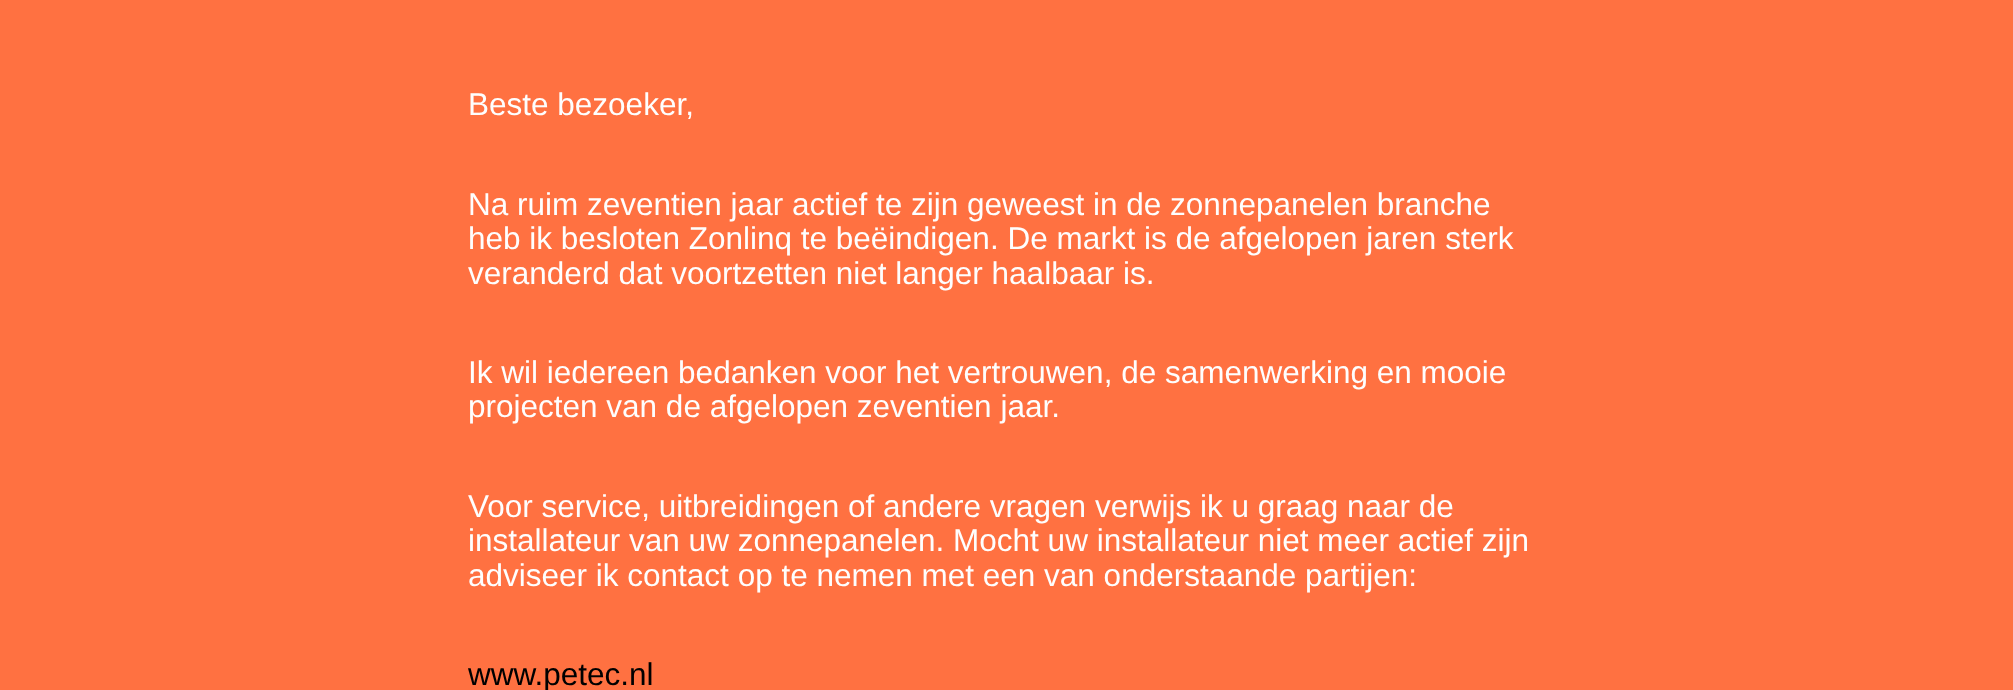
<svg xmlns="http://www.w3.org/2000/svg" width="2013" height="690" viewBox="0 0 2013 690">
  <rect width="100%" height="100%" fill="rgb(255,113,65)"/>
  <g font-family="Liberation Sans" font-size="31.5" fill="rgb(254,254,254)">
    <text x="468" y="115">Beste bezoeker,</text>
    <text>
      <tspan x="468" y="215">Na ruim zeventien jaar actief te zijn geweest in de zonnepanelen branche</tspan>
      <tspan x="468" y="249">heb ik besloten Zonlinq te beëindigen. De markt is de afgelopen jaren sterk</tspan>
      <tspan x="468" y="284">veranderd dat voortzetten niet langer haalbaar is.</tspan>
    </text>
    <text>
      <tspan x="468" y="383">Ik wil iedereen bedanken voor het vertrouwen, de samenwerking en mooie</tspan>
      <tspan x="468" y="417">projecten van de afgelopen zeventien jaar.</tspan>
    </text>
    <text>
      <tspan x="468" y="517">Voor service, uitbreidingen of andere vragen verwijs ik u graag naar de</tspan>
      <tspan x="468" y="551">installateur van uw zonnepanelen. Mocht uw installateur niet meer actief zijn</tspan>
      <tspan x="468" y="586">adviseer ik contact op te nemen met een van onderstaande partijen:</tspan>
    </text>
  </g>
  <text x="468" y="685" font-family="Liberation Sans" font-size="31.5" fill="rgb(0,0,0)">www.petec.nl</text>
</svg>
